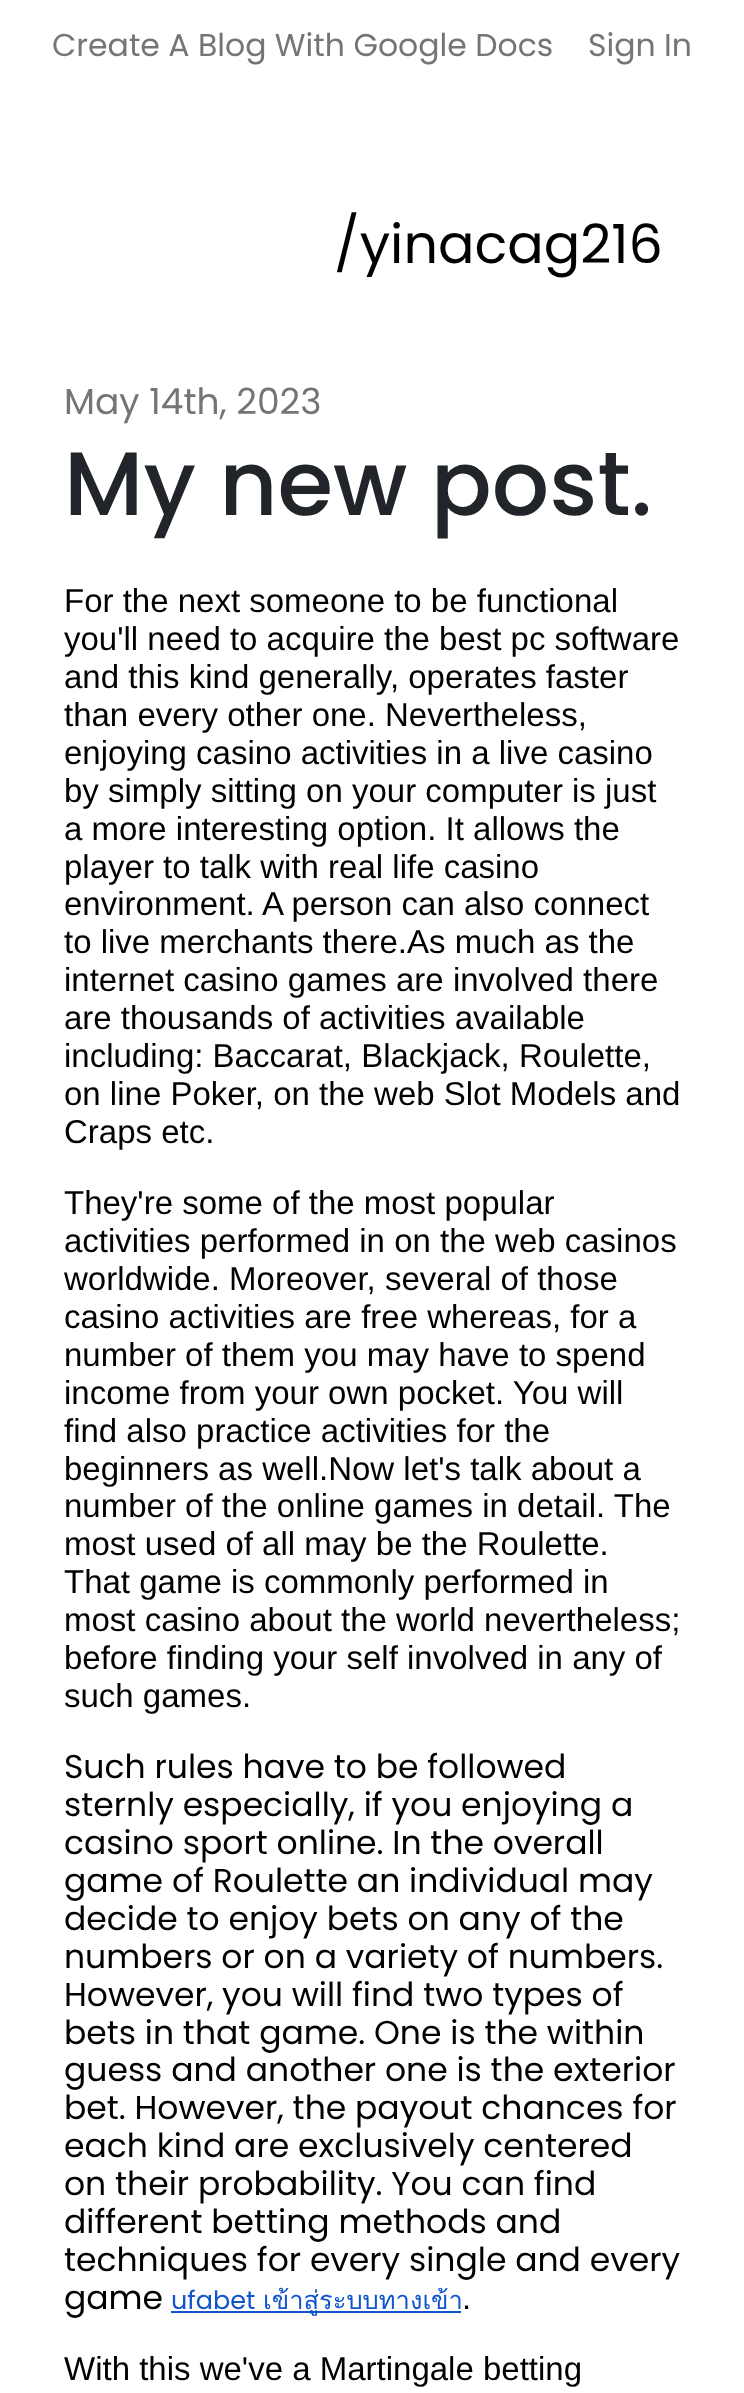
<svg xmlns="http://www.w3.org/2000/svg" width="744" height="2393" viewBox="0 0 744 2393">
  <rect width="100%" height="100%" fill="rgb(255,255,255)"/>
  <g font-family="Poppins" font-size="31.5" fill="rgb(117,117,117)">
    <text x="52" y="56">Create A Blog With Google Docs</text>
    <text x="588" y="56">Sign In</text>
  </g>
  <text x="334" y="263" font-family="Poppins" font-size="54" fill="rgb(0,0,0)">/yinacag216</text>
  <text x="64" y="414" font-family="Poppins" font-size="36" fill="rgb(117,117,117)">May 14th, 2023</text>
  <text x="64" y="515" font-family="Poppins" font-size="90" font-weight="500" fill="rgb(33,37,41)">My new post.</text>
  <g font-family="Liberation Sans" font-size="33" fill="rgb(0,0,0)">
    <text>
      <tspan x="64" y="612">For the next someone to be functional</tspan>
      <tspan x="64" y="650">you'll need to acquire the best pc software</tspan>
      <tspan x="64" y="688">and this kind generally, operates faster</tspan>
      <tspan x="64" y="726">than every other one. Nevertheless,</tspan>
      <tspan x="64" y="764">enjoying casino activities in a live casino</tspan>
      <tspan x="64" y="802">by simply sitting on your computer is just</tspan>
      <tspan x="64" y="840">a more interesting option. It allows the</tspan>
      <tspan x="64" y="878">player to talk with real life casino</tspan>
      <tspan x="64" y="915">environment. A person can also connect</tspan>
      <tspan x="64" y="953">to live merchants there.As much as the</tspan>
      <tspan x="64" y="991">internet casino games are involved there</tspan>
      <tspan x="64" y="1029">are thousands of activities available</tspan>
      <tspan x="64" y="1067">including: Baccarat, Blackjack, Roulette,</tspan>
      <tspan x="64" y="1105">on line Poker, on the web Slot Models and</tspan>
      <tspan x="64" y="1143">Craps etc.</tspan>
    </text>
    <text>
      <tspan x="64" y="1214">They're some of the most popular</tspan>
      <tspan x="64" y="1252">activities performed in on the web casinos</tspan>
      <tspan x="64" y="1290">worldwide. Moreover, several of those</tspan>
      <tspan x="64" y="1328">casino activities are free whereas, for a</tspan>
      <tspan x="64" y="1366">number of them you may have to spend</tspan>
      <tspan x="64" y="1404">income from your own pocket. You will</tspan>
      <tspan x="64" y="1442">find also practice activities for the</tspan>
      <tspan x="64" y="1480">beginners as well.Now let's talk about a</tspan>
      <tspan x="64" y="1517">number of the online games in detail. The</tspan>
      <tspan x="64" y="1555">most used of all may be the Roulette.</tspan>
      <tspan x="64" y="1593">That game is commonly performed in</tspan>
      <tspan x="64" y="1631">most casino about the world nevertheless;</tspan>
      <tspan x="64" y="1669">before finding your self involved in any of</tspan>
      <tspan x="64" y="1707">such games.</tspan>
    </text>
  </g>
  <g font-family="Poppins" font-size="33" fill="rgb(0,0,0)">
    <text>
      <tspan x="64" y="1778">Such rules have to be followed</tspan>
      <tspan x="64" y="1816">sternly especially, if you enjoying a</tspan>
      <tspan x="64" y="1854">casino sport online. In the overall</tspan>
      <tspan x="64" y="1892">game of Roulette an individual may</tspan>
      <tspan x="64" y="1930">decide to enjoy bets on any of the</tspan>
      <tspan x="64" y="1968">numbers or on a variety of numbers.</tspan>
      <tspan x="64" y="2006">However, you will find two types of</tspan>
      <tspan x="64" y="2044">bets in that game. One is the within</tspan>
      <tspan x="64" y="2081">guess and another one is the exterior</tspan>
      <tspan x="64" y="2119">bet. However, the payout chances for</tspan>
      <tspan x="64" y="2157">each kind are exclusively centered</tspan>
      <tspan x="64" y="2195">on their probability. You can find</tspan>
      <tspan x="64" y="2233">different betting methods and</tspan>
      <tspan x="64" y="2271">techniques for every single and every</tspan>
      <tspan x="64" y="2309">game</tspan>
    </text>
  </g>
  <text x="171" y="2309" font-family="Poppins" font-size="25.5" fill="rgb(17,85,204)">ufabet</text>
  <rect x="171" y="2311" width="290" height="2" fill="rgb(17,85,204)"/>
  <text x="263" y="2309" font-family="Loma" font-size="25.5" fill="rgb(17,85,204)">เข้าสู่ระบบทางเข้า</text>
  <g font-family="Liberation Sans" font-size="33" fill="rgb(0,0,0)">
    <text x="462" y="2309">.</text>
    <text x="64" y="2380">With this we've a Martingale betting</text>
  </g>
</svg>
